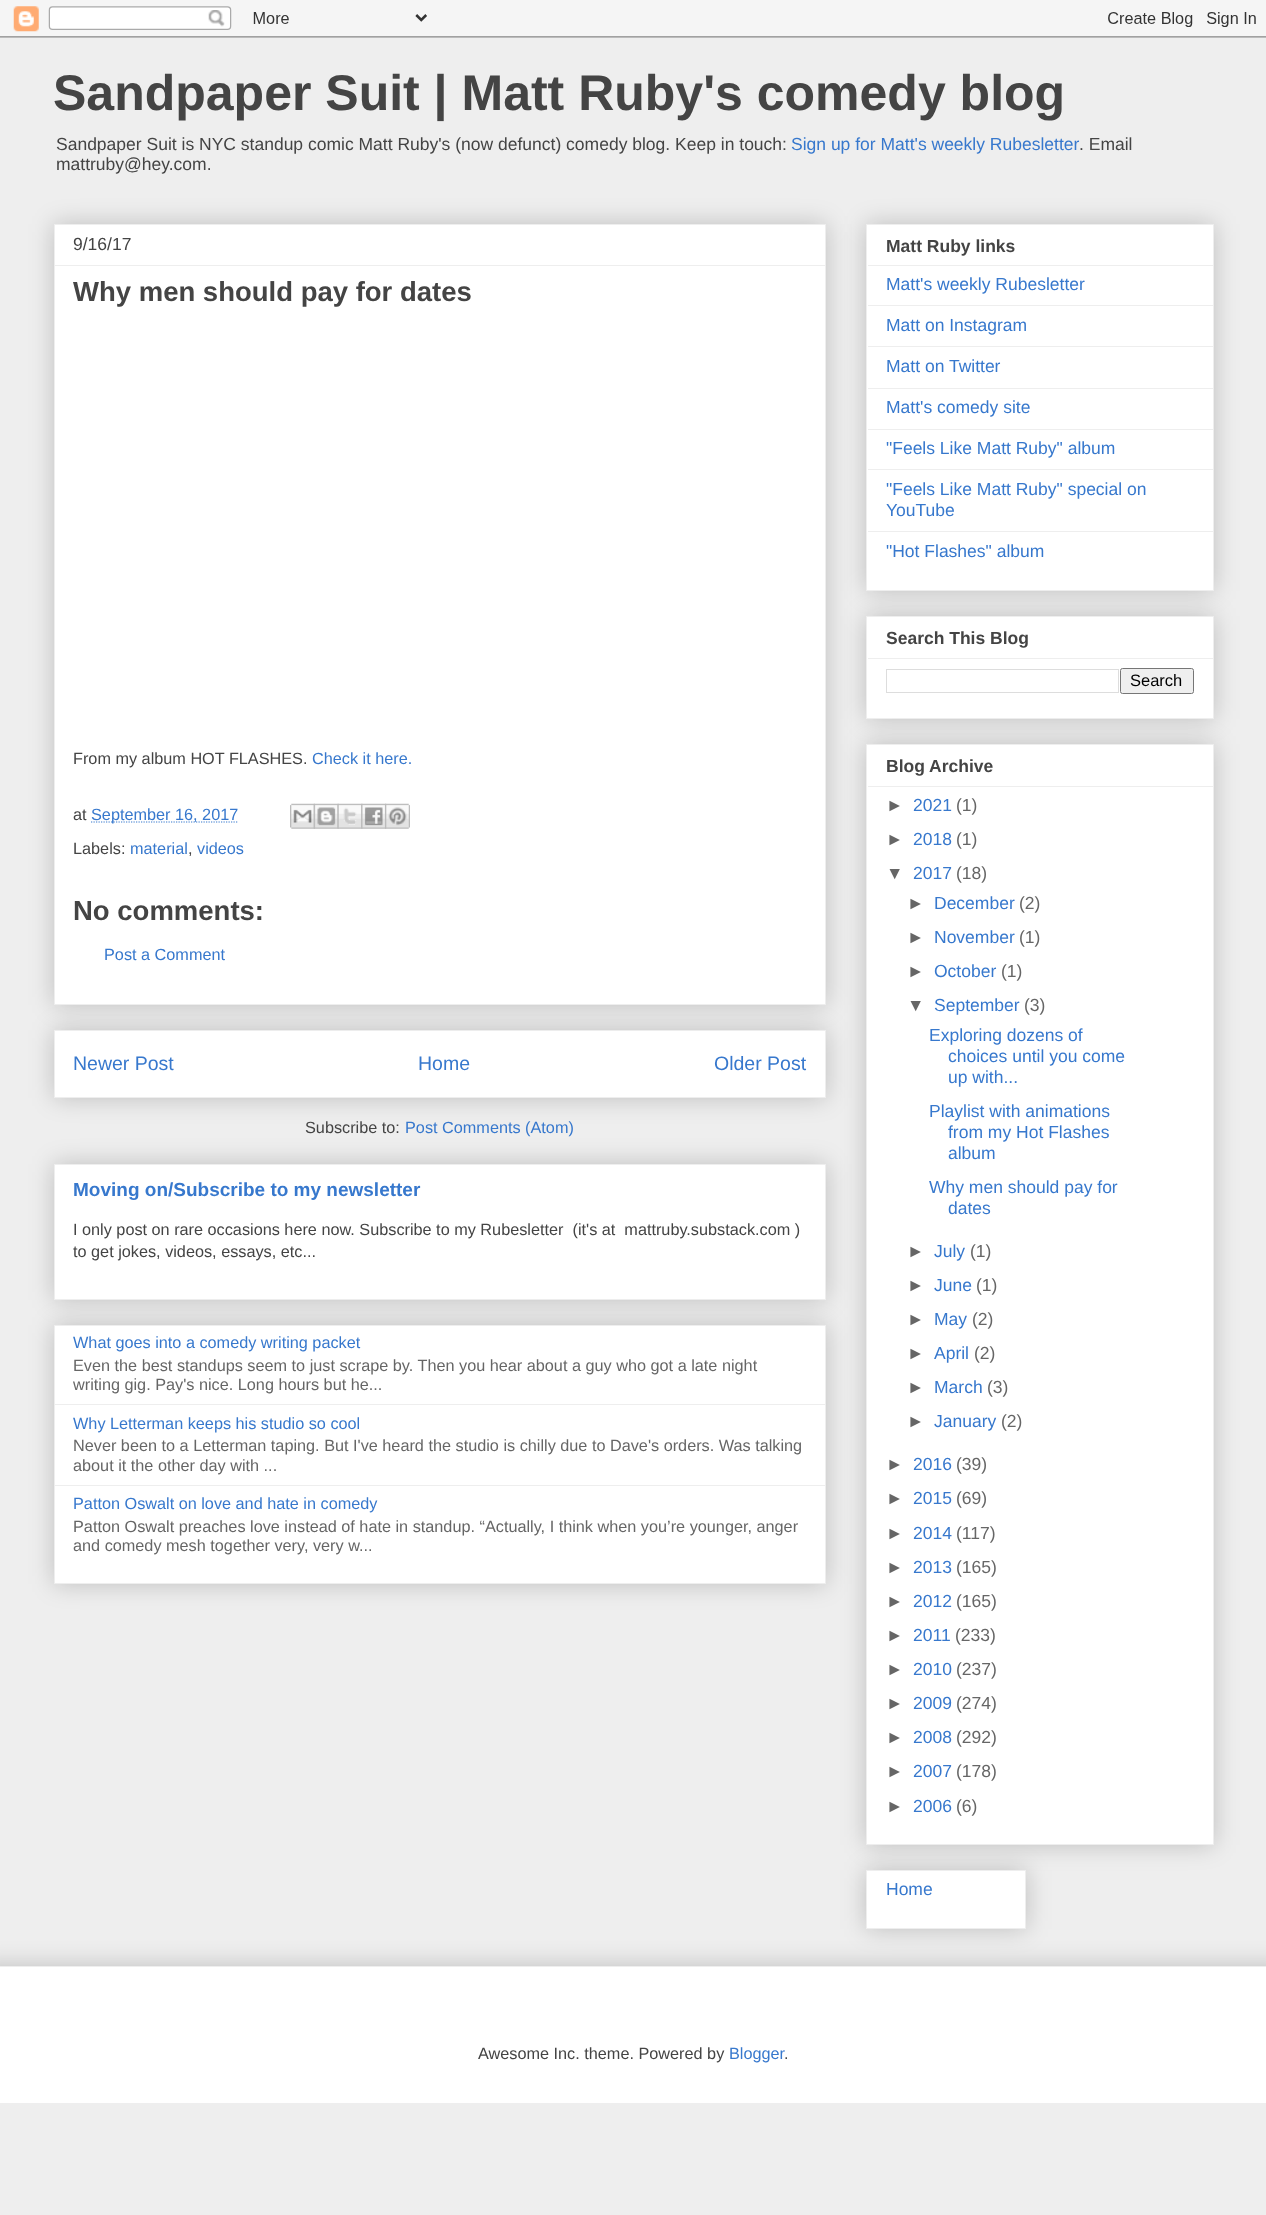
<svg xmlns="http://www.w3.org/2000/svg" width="1266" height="2215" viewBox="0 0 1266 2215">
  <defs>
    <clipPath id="clip1"><rect x="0" y="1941" width="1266" height="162"/></clipPath>
  </defs>
  <rect width="100%" height="100%" fill="rgb(238,238,238)"/>
  <image x="0" y="0" width="1266" height="38" href="pic1.png"/>
  <text x="53" y="110" font-family="Liberation Sans" font-size="50" font-weight="bold" fill="rgb(68,68,68)">Sandpaper Suit | Matt Ruby's comedy blog</text>
  <text x="56" y="150" font-family="Liberation Sans" font-size="17.5" fill="rgb(68,68,68)">Sandpaper Suit is NYC standup comic Matt Ruby's (now defunct) comedy blog. Keep in touch:</text>
  <text x="791" y="150" font-family="Liberation Sans" font-size="17.5" fill="rgb(55,120,205)">Sign up for Matt's weekly Rubesletter</text>
  <g font-family="Liberation Sans" font-size="17.5" fill="rgb(68,68,68)">
    <text x="1079" y="150">. Email</text>
    <text x="56" y="170">mattruby@hey.com.</text>
  </g>
  <rect x="54" y="1030" width="772" height="68" fill="rgba(0,0,0,0.2)" filter="blur(12.5px)"/>
  <rect x="54.5" y="1030.5" width="771" height="67" fill="rgb(255,255,255)" stroke="rgb(238,238,238)"/>
  <rect x="54" y="224" width="772" height="781" fill="rgba(0,0,0,0.2)" filter="blur(12.5px)"/>
  <rect x="54.5" y="224.5" width="771" height="780" fill="rgb(255,255,255)" stroke="rgb(238,238,238)"/>
  <text x="73" y="250" font-family="Liberation Sans" font-size="17.5" fill="rgb(68,68,68)">9/16/17</text>
  <rect x="55" y="265" width="770" height="1" fill="rgb(238,238,238)"/>
  <text x="73" y="301" font-family="Liberation Sans" font-size="27.5" font-weight="bold" fill="rgb(68,68,68)">Why men should pay for dates</text>
  <text x="73" y="764" font-family="Liberation Sans" font-size="16.25" fill="rgb(68,68,68)">From my album HOT FLASHES.</text>
  <text x="312" y="764" font-family="Liberation Sans" font-size="16.25" fill="rgb(55,120,205)">Check it here.</text>
  <text x="73" y="820" font-family="Liberation Sans" font-size="16.25" fill="rgb(68,68,68)">at</text>
  <path d="M91 822H238.5" fill="none" stroke="rgb(55,120,205)" stroke-width="1.2" stroke-dasharray="1.25 1.25"/>
  <text x="91" y="820" font-family="Liberation Sans" font-size="16.25" fill="rgb(55,120,205)">September 16, 2017</text>
  <image x="290" y="803" width="25" height="26" href="pic2.png"/>
  <image x="313" y="803" width="26" height="26" href="pic3.png"/>
  <image x="337" y="803" width="26" height="26" href="pic4.png"/>
  <image x="361" y="803" width="26" height="26" href="pic5.png"/>
  <image x="385" y="803" width="25" height="26" href="pic6.png"/>
  <text x="73" y="854" font-family="Liberation Sans" font-size="16.25" fill="rgb(68,68,68)">Labels:</text>
  <text x="130" y="854" font-family="Liberation Sans" font-size="16.25" fill="rgb(55,120,205)">material</text>
  <text x="188" y="854" font-family="Liberation Sans" font-size="16.25" fill="rgb(68,68,68)">,</text>
  <text x="197" y="854" font-family="Liberation Sans" font-size="16.25" fill="rgb(55,120,205)">videos</text>
  <text x="73" y="920" font-family="Liberation Sans" font-size="27.5" font-weight="bold" fill="rgb(68,68,68)">No comments:</text>
  <text x="104" y="960" font-family="Liberation Sans" font-size="16.25" fill="rgb(55,120,205)">Post a Comment</text>
  <g font-family="Liberation Sans" font-size="19.5" fill="rgb(55,120,205)">
    <text x="73" y="1070">Newer Post</text>
    <text x="418" y="1070">Home</text>
    <text x="714" y="1070">Older Post</text>
  </g>
  <text x="305" y="1133" font-family="Liberation Sans" font-size="16.25" fill="rgb(68,68,68)">Subscribe to:</text>
  <text x="405" y="1133" font-family="Liberation Sans" font-size="16.25" fill="rgb(55,120,205)">Post Comments (Atom)</text>
  <rect x="54" y="1164" width="772" height="136" fill="rgba(0,0,0,0.2)" filter="blur(12.5px)"/>
  <rect x="54.5" y="1164.5" width="771" height="135" fill="rgb(255,255,255)" stroke="rgb(238,238,238)"/>
  <text x="73" y="1196" font-family="Liberation Sans" font-size="19" font-weight="bold" fill="rgb(55,120,205)">Moving on/Subscribe to my newsletter</text>
  <g font-family="Liberation Sans" font-size="16.25" fill="rgb(68,68,68)">
    <text xml:space="preserve"><tspan x="73" y="1235">I only post on rare occasions here now. Subscribe to my Rubesletter  (it's at  mattruby.substack.com )</tspan><tspan x="73" y="1257">to get jokes, videos, essays, etc...</tspan></text>
  </g>
  <rect x="54" y="1325" width="772" height="259" fill="rgba(0,0,0,0.2)" filter="blur(12.5px)"/>
  <rect x="54.5" y="1325.5" width="771" height="258" fill="rgb(255,255,255)" stroke="rgb(238,238,238)"/>
  <text x="73" y="1348" font-family="Liberation Sans" font-size="16.25" fill="rgb(55,120,205)">What goes into a comedy writing packet</text>
  <g font-family="Liberation Sans" font-size="16.25" fill="rgb(102,102,102)">
    <text>
      <tspan x="73" y="1371">Even the best standups seem to just scrape by. Then you hear about a guy who got a late night</tspan>
      <tspan x="73" y="1390">writing gig. Pay's nice. Long hours but he...</tspan>
    </text>
  </g>
  <rect x="55" y="1404" width="770" height="1" fill="rgb(238,238,238)"/>
  <text x="73" y="1429" font-family="Liberation Sans" font-size="16.25" fill="rgb(55,120,205)">Why Letterman keeps his studio so cool</text>
  <g font-family="Liberation Sans" font-size="16.25" fill="rgb(102,102,102)">
    <text>
      <tspan x="73" y="1451">Never been to a Letterman taping. But I've heard the studio is chilly due to Dave's orders. Was talking</tspan>
      <tspan x="73" y="1471">about it the other day with ...</tspan>
    </text>
  </g>
  <rect x="55" y="1485" width="770" height="1" fill="rgb(238,238,238)"/>
  <text x="73" y="1509" font-family="Liberation Sans" font-size="16.25" fill="rgb(55,120,205)">Patton Oswalt on love and hate in comedy</text>
  <g font-family="Liberation Sans" font-size="16.25" fill="rgb(102,102,102)">
    <text>
      <tspan x="73" y="1532">Patton Oswalt preaches love instead of hate in standup. “Actually, I think when you’re younger, anger</tspan>
      <tspan x="73" y="1551">and comedy mesh together very, very w...</tspan>
    </text>
  </g>
  <rect x="866" y="224" width="348" height="367" fill="rgba(0,0,0,0.2)" filter="blur(12.5px)"/>
  <rect x="866.5" y="224.5" width="347" height="366" fill="rgb(255,255,255)" stroke="rgb(238,238,238)"/>
  <text x="886" y="252" font-family="Liberation Sans" font-size="17.5" font-weight="bold" fill="rgb(68,68,68)">Matt Ruby links</text>
  <rect x="868" y="265" width="345" height="1" fill="rgb(238,238,238)"/>
  <text x="886" y="290" font-family="Liberation Sans" font-size="17.5" fill="rgb(55,120,205)">Matt's weekly Rubesletter</text>
  <rect x="868" y="305" width="345" height="1" fill="rgb(238,238,238)"/>
  <text x="886" y="331" font-family="Liberation Sans" font-size="17.5" fill="rgb(55,120,205)">Matt on Instagram</text>
  <rect x="868" y="346" width="345" height="1" fill="rgb(238,238,238)"/>
  <text x="886" y="372" font-family="Liberation Sans" font-size="17.5" fill="rgb(55,120,205)">Matt on Twitter</text>
  <rect x="868" y="388" width="345" height="1" fill="rgb(238,238,238)"/>
  <text x="886" y="413" font-family="Liberation Sans" font-size="17.5" fill="rgb(55,120,205)">Matt's comedy site</text>
  <rect x="868" y="429" width="345" height="1" fill="rgb(238,238,238)"/>
  <text x="886" y="454" font-family="Liberation Sans" font-size="17.5" fill="rgb(55,120,205)">"Feels Like Matt Ruby" album</text>
  <rect x="868" y="469" width="345" height="1" fill="rgb(238,238,238)"/>
  <g font-family="Liberation Sans" font-size="17.5" fill="rgb(55,120,205)">
    <text>
      <tspan x="886" y="495">"Feels Like Matt Ruby" special on</tspan>
      <tspan x="886" y="516">YouTube</tspan>
    </text>
  </g>
  <rect x="868" y="531" width="345" height="1" fill="rgb(238,238,238)"/>
  <text x="886" y="557" font-family="Liberation Sans" font-size="17.5" fill="rgb(55,120,205)">"Hot Flashes" album</text>
  <rect x="866" y="616" width="348" height="103" fill="rgba(0,0,0,0.2)" filter="blur(12.5px)"/>
  <rect x="866.5" y="616.5" width="347" height="102" fill="rgb(255,255,255)" stroke="rgb(238,238,238)"/>
  <text x="886" y="644" font-family="Liberation Sans" font-size="17.5" font-weight="bold" fill="rgb(68,68,68)">Search This Blog</text>
  <rect x="868" y="658" width="345" height="1" fill="rgb(238,238,238)"/>
  <rect x="886.5" y="669.5" width="232" height="23" fill="none" stroke="rgb(221,221,221)"/>
  <rect x="1120.5" y="668.5" width="73" height="25" rx="2" fill="rgb(239,239,239)" stroke="rgb(118,118,118)"/>
  <text x="1130" y="686" font-family="Liberation Sans" font-size="16.5" fill="rgb(0,0,0)">Search</text>
  <rect x="866" y="744" width="348" height="1101" fill="rgba(0,0,0,0.2)" filter="blur(12.5px)"/>
  <rect x="866.5" y="744.5" width="347" height="1100" fill="rgb(255,255,255)" stroke="rgb(238,238,238)"/>
  <text x="886" y="772" font-family="Liberation Sans" font-size="17.5" font-weight="bold" fill="rgb(68,68,68)">Blog Archive</text>
  <rect x="868" y="786" width="345" height="1" fill="rgb(238,238,238)"/>
  <text x="886" y="811" font-family="Liberation Sans" font-size="17.5" fill="rgb(102,102,102)">►</text>
  <text x="913" y="811" font-family="Liberation Sans" font-size="17.5" fill="rgb(55,120,205)">2021</text>
  <g font-family="Liberation Sans" font-size="17.5" fill="rgb(102,102,102)">
    <text x="956" y="811">(1)</text>
    <text x="886" y="845">►</text>
  </g>
  <text x="913" y="845" font-family="Liberation Sans" font-size="17.5" fill="rgb(55,120,205)">2018</text>
  <g font-family="Liberation Sans" font-size="17.5" fill="rgb(102,102,102)">
    <text x="956" y="845">(1)</text>
    <text x="886" y="879">▼</text>
  </g>
  <text x="913" y="879" font-family="Liberation Sans" font-size="17.5" fill="rgb(55,120,205)">2017</text>
  <g font-family="Liberation Sans" font-size="17.5" fill="rgb(102,102,102)">
    <text x="956" y="879">(18)</text>
    <text x="907" y="909">►</text>
  </g>
  <text x="934" y="909" font-family="Liberation Sans" font-size="17.5" fill="rgb(55,120,205)">December</text>
  <g font-family="Liberation Sans" font-size="17.5" fill="rgb(102,102,102)">
    <text x="1019" y="909">(2)</text>
    <text x="907" y="943">►</text>
  </g>
  <text x="934" y="943" font-family="Liberation Sans" font-size="17.5" fill="rgb(55,120,205)">November</text>
  <g font-family="Liberation Sans" font-size="17.5" fill="rgb(102,102,102)">
    <text x="1019" y="943">(1)</text>
    <text x="907" y="977">►</text>
  </g>
  <text x="934" y="977" font-family="Liberation Sans" font-size="17.5" fill="rgb(55,120,205)">October</text>
  <g font-family="Liberation Sans" font-size="17.5" fill="rgb(102,102,102)">
    <text x="1001" y="977">(1)</text>
    <text x="907" y="1011">▼</text>
  </g>
  <text x="934" y="1011" font-family="Liberation Sans" font-size="17.5" fill="rgb(55,120,205)">September</text>
  <text x="1024" y="1011" font-family="Liberation Sans" font-size="17.5" fill="rgb(102,102,102)">(3)</text>
  <g font-family="Liberation Sans" font-size="17.5" fill="rgb(55,120,205)">
    <text x="929" y="1041">Exploring dozens of</text>
    <text>
      <tspan x="948" y="1062">choices until you come</tspan>
      <tspan x="948" y="1083">up with...</tspan>
    </text>
    <text x="929" y="1117">Playlist with animations</text>
    <text>
      <tspan x="948" y="1138">from my Hot Flashes</tspan>
      <tspan x="948" y="1159">album</tspan>
    </text>
    <text x="929" y="1193">Why men should pay for</text>
    <text x="948" y="1214">dates</text>
  </g>
  <text x="907" y="1257" font-family="Liberation Sans" font-size="17.5" fill="rgb(102,102,102)">►</text>
  <text x="934" y="1257" font-family="Liberation Sans" font-size="17.5" fill="rgb(55,120,205)">July</text>
  <g font-family="Liberation Sans" font-size="17.5" fill="rgb(102,102,102)">
    <text x="970" y="1257">(1)</text>
    <text x="907" y="1291">►</text>
  </g>
  <text x="934" y="1291" font-family="Liberation Sans" font-size="17.5" fill="rgb(55,120,205)">June</text>
  <g font-family="Liberation Sans" font-size="17.5" fill="rgb(102,102,102)">
    <text x="976" y="1291">(1)</text>
    <text x="907" y="1325">►</text>
  </g>
  <text x="934" y="1325" font-family="Liberation Sans" font-size="17.5" fill="rgb(55,120,205)">May</text>
  <g font-family="Liberation Sans" font-size="17.5" fill="rgb(102,102,102)">
    <text x="972" y="1325">(2)</text>
    <text x="907" y="1359">►</text>
  </g>
  <text x="934" y="1359" font-family="Liberation Sans" font-size="17.5" fill="rgb(55,120,205)">April</text>
  <g font-family="Liberation Sans" font-size="17.5" fill="rgb(102,102,102)">
    <text x="974" y="1359">(2)</text>
    <text x="907" y="1393">►</text>
  </g>
  <text x="934" y="1393" font-family="Liberation Sans" font-size="17.5" fill="rgb(55,120,205)">March</text>
  <g font-family="Liberation Sans" font-size="17.5" fill="rgb(102,102,102)">
    <text x="987" y="1393">(3)</text>
    <text x="907" y="1427">►</text>
  </g>
  <text x="934" y="1427" font-family="Liberation Sans" font-size="17.5" fill="rgb(55,120,205)">January</text>
  <g font-family="Liberation Sans" font-size="17.5" fill="rgb(102,102,102)">
    <text x="1001" y="1427">(2)</text>
    <text x="886" y="1470">►</text>
  </g>
  <text x="913" y="1470" font-family="Liberation Sans" font-size="17.5" fill="rgb(55,120,205)">2016</text>
  <g font-family="Liberation Sans" font-size="17.5" fill="rgb(102,102,102)">
    <text x="956" y="1470">(39)</text>
    <text x="886" y="1504">►</text>
  </g>
  <text x="913" y="1504" font-family="Liberation Sans" font-size="17.5" fill="rgb(55,120,205)">2015</text>
  <g font-family="Liberation Sans" font-size="17.5" fill="rgb(102,102,102)">
    <text x="956" y="1504">(69)</text>
    <text x="886" y="1539">►</text>
  </g>
  <text x="913" y="1539" font-family="Liberation Sans" font-size="17.5" fill="rgb(55,120,205)">2014</text>
  <g font-family="Liberation Sans" font-size="17.5" fill="rgb(102,102,102)">
    <text x="956" y="1539">(117)</text>
    <text x="886" y="1573">►</text>
  </g>
  <text x="913" y="1573" font-family="Liberation Sans" font-size="17.5" fill="rgb(55,120,205)">2013</text>
  <g font-family="Liberation Sans" font-size="17.5" fill="rgb(102,102,102)">
    <text x="956" y="1573">(165)</text>
    <text x="886" y="1607">►</text>
  </g>
  <text x="913" y="1607" font-family="Liberation Sans" font-size="17.5" fill="rgb(55,120,205)">2012</text>
  <g font-family="Liberation Sans" font-size="17.5" fill="rgb(102,102,102)">
    <text x="956" y="1607">(165)</text>
    <text x="886" y="1641">►</text>
  </g>
  <text x="913" y="1641" font-family="Liberation Sans" font-size="17.5" fill="rgb(55,120,205)">2011</text>
  <g font-family="Liberation Sans" font-size="17.5" fill="rgb(102,102,102)">
    <text x="955" y="1641">(233)</text>
    <text x="886" y="1675">►</text>
  </g>
  <text x="913" y="1675" font-family="Liberation Sans" font-size="17.5" fill="rgb(55,120,205)">2010</text>
  <g font-family="Liberation Sans" font-size="17.5" fill="rgb(102,102,102)">
    <text x="956" y="1675">(237)</text>
    <text x="886" y="1709">►</text>
  </g>
  <text x="913" y="1709" font-family="Liberation Sans" font-size="17.5" fill="rgb(55,120,205)">2009</text>
  <g font-family="Liberation Sans" font-size="17.5" fill="rgb(102,102,102)">
    <text x="956" y="1709">(274)</text>
    <text x="886" y="1743">►</text>
  </g>
  <text x="913" y="1743" font-family="Liberation Sans" font-size="17.5" fill="rgb(55,120,205)">2008</text>
  <g font-family="Liberation Sans" font-size="17.5" fill="rgb(102,102,102)">
    <text x="956" y="1743">(292)</text>
    <text x="886" y="1777">►</text>
  </g>
  <text x="913" y="1777" font-family="Liberation Sans" font-size="17.5" fill="rgb(55,120,205)">2007</text>
  <g font-family="Liberation Sans" font-size="17.5" fill="rgb(102,102,102)">
    <text x="956" y="1777">(178)</text>
    <text x="886" y="1812">►</text>
  </g>
  <text x="913" y="1812" font-family="Liberation Sans" font-size="17.5" fill="rgb(55,120,205)">2006</text>
  <text x="956" y="1812" font-family="Liberation Sans" font-size="17.5" fill="rgb(102,102,102)">(6)</text>
  <rect x="866" y="1870" width="160" height="59" fill="rgba(0,0,0,0.2)" filter="blur(12.5px)"/>
  <rect x="866.5" y="1870.5" width="159" height="58" fill="rgb(255,255,255)" stroke="rgb(238,238,238)"/>
  <text x="886" y="1895" font-family="Liberation Sans" font-size="17.5" fill="rgb(55,120,205)">Home</text>
  <g clip-path="url(#clip1)">
    <rect x="-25" y="1966" width="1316" height="137" fill="rgba(0,0,0,0.2)" filter="blur(12.5px)"/>
  </g>
  <rect x="0" y="1967" width="1266" height="136" fill="rgb(255,255,255)"/>
  <rect x="0" y="1966" width="1266" height="1" fill="rgb(238,238,238)"/>
  <text x="478" y="2059" font-family="Liberation Sans" font-size="16.25" fill="rgb(68,68,68)">Awesome Inc. theme. Powered by</text>
  <text x="729" y="2059" font-family="Liberation Sans" font-size="16.25" fill="rgb(55,120,205)">Blogger</text>
  <text x="784" y="2059" font-family="Liberation Sans" font-size="16.25" fill="rgb(68,68,68)">.</text>
</svg>
